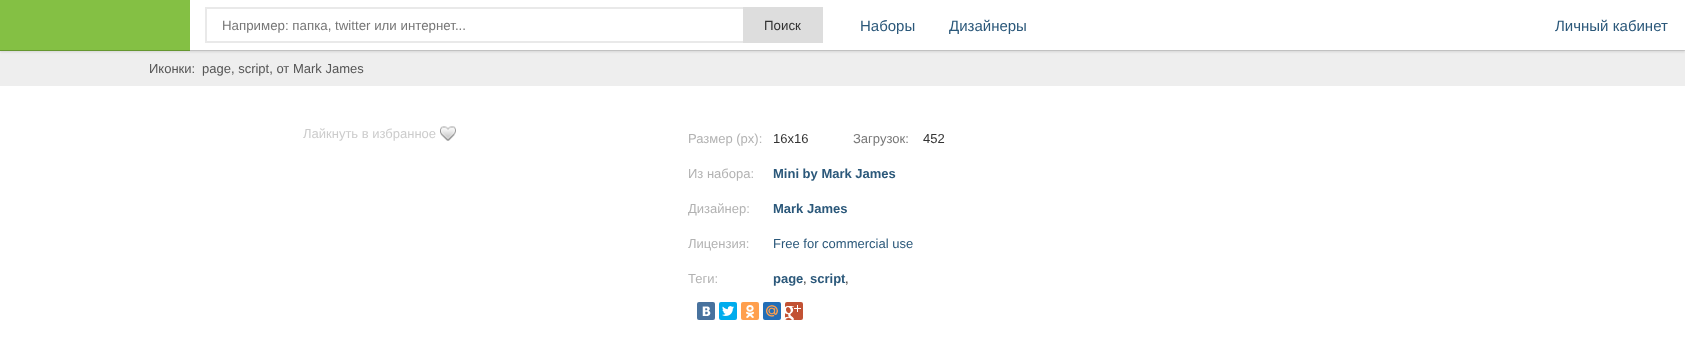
<svg xmlns="http://www.w3.org/2000/svg" width="1685" height="345" viewBox="0 0 1685 345">
  <rect width="100%" height="100%" fill="rgb(238,238,238)"/>
  <rect x="190" y="50" width="1495" height="1" fill="rgb(214,214,214)"/>
  <rect x="0" y="2" width="1685" height="50" fill="rgba(0,0,0,0.1)" filter="blur(1px)"/>
  <rect x="190" y="0" width="1495" height="50" fill="rgb(255,255,255)"/>
  <rect x="0" y="0" width="190" height="50" fill="rgb(132,192,68)"/>
  <rect x="0" y="50" width="190" height="1" fill="rgb(102,151,49)"/>
  <rect x="206" y="8" width="586" height="34" fill="none" stroke="rgb(233,233,233)" stroke-width="2"/>
  <text x="222" y="30" font-family="Liberation Sans" font-size="13.3" fill="rgb(119,119,119)">Например: папка, twitter или интернет...</text>
  <rect x="743" y="7" width="80" height="36" fill="rgb(221,221,221)"/>
  <text x="764" y="30" font-family="Liberation Sans" font-size="13.3" fill="rgb(51,51,51)">Поиск</text>
  <g font-family="Liberation Sans" font-size="15" fill="rgb(43,88,122)">
    <text x="860" y="31">Наборы</text>
    <text x="949" y="31">Дизайнеры</text>
    <text x="1555" y="31">Личный кабинет</text>
  </g>
  <g font-family="Liberation Sans" font-size="13" fill="rgb(85,85,85)">
    <text x="149" y="73">Иконки:</text>
    <text x="202" y="73">page, script, от Mark James</text>
  </g>
  <rect x="0" y="86" width="1685" height="259" fill="rgb(255,255,255)"/>
  <image x="440" y="126" width="16" height="15" href="pic1.png"/>
  <text x="303" y="138" font-family="Liberation Sans" font-size="13" fill="rgb(204,204,204)">Лайкнуть в избранное</text>
  <text x="688" y="143" font-family="Liberation Sans" font-size="13" fill="rgb(178,178,178)">Размер (px):</text>
  <text x="773" y="143" font-family="Liberation Sans" font-size="13" fill="rgb(51,51,51)">16x16</text>
  <text x="853" y="143" font-family="Liberation Sans" font-size="13" fill="rgb(119,119,119)">Загрузок:</text>
  <text x="923" y="143" font-family="Liberation Sans" font-size="13" fill="rgb(51,51,51)">452</text>
  <text x="688" y="178" font-family="Liberation Sans" font-size="13" fill="rgb(178,178,178)">Из набора:</text>
  <text x="773" y="178" font-family="Liberation Sans" font-size="13" font-weight="bold" fill="rgb(43,88,122)">Mini by Mark James</text>
  <text x="688" y="213" font-family="Liberation Sans" font-size="13" fill="rgb(178,178,178)">Дизайнер:</text>
  <text x="773" y="213" font-family="Liberation Sans" font-size="13" font-weight="bold" fill="rgb(43,88,122)">Mark James</text>
  <text x="688" y="248" font-family="Liberation Sans" font-size="13" fill="rgb(178,178,178)">Лицензия:</text>
  <text x="773" y="248" font-family="Liberation Sans" font-size="13" fill="rgb(43,88,122)">Free for commercial use</text>
  <text x="688" y="283" font-family="Liberation Sans" font-size="13" fill="rgb(178,178,178)">Теги:</text>
  <text x="773" y="283" font-family="Liberation Sans" font-size="13" font-weight="bold" fill="rgb(43,88,122)">page</text>
  <text x="803" y="283" font-family="Liberation Sans" font-size="13" fill="rgb(51,51,51)">,</text>
  <text x="810" y="283" font-family="Liberation Sans" font-size="13" font-weight="bold" fill="rgb(43,88,122)">script</text>
  <text x="845" y="283" font-family="Liberation Sans" font-size="13" fill="rgb(51,51,51)">,</text>
  <rect x="697" y="302" width="18" height="18" rx="2" fill="rgb(72,114,158)"/>
  <image x="702" y="306" width="9" height="10" href="pic2.png"/>
  <rect x="719" y="302" width="18" height="18" rx="2" fill="rgb(0,172,237)"/>
  <image x="722" y="306" width="12" height="10" href="pic3.png"/>
  <rect x="741" y="302" width="18" height="18" rx="2" fill="rgb(255,159,77)"/>
  <image x="746" y="305" width="8" height="13" href="pic4.png"/>
  <rect x="763" y="302" width="18" height="18" rx="2" fill="rgb(34,110,183)"/>
  <image x="766" y="305" width="12" height="12" href="pic5.png"/>
  <rect x="785" y="302" width="18" height="18" rx="2" fill="rgb(194,82,52)"/>
  <image x="785" y="305" width="16" height="15" href="pic6.png"/>
</svg>
